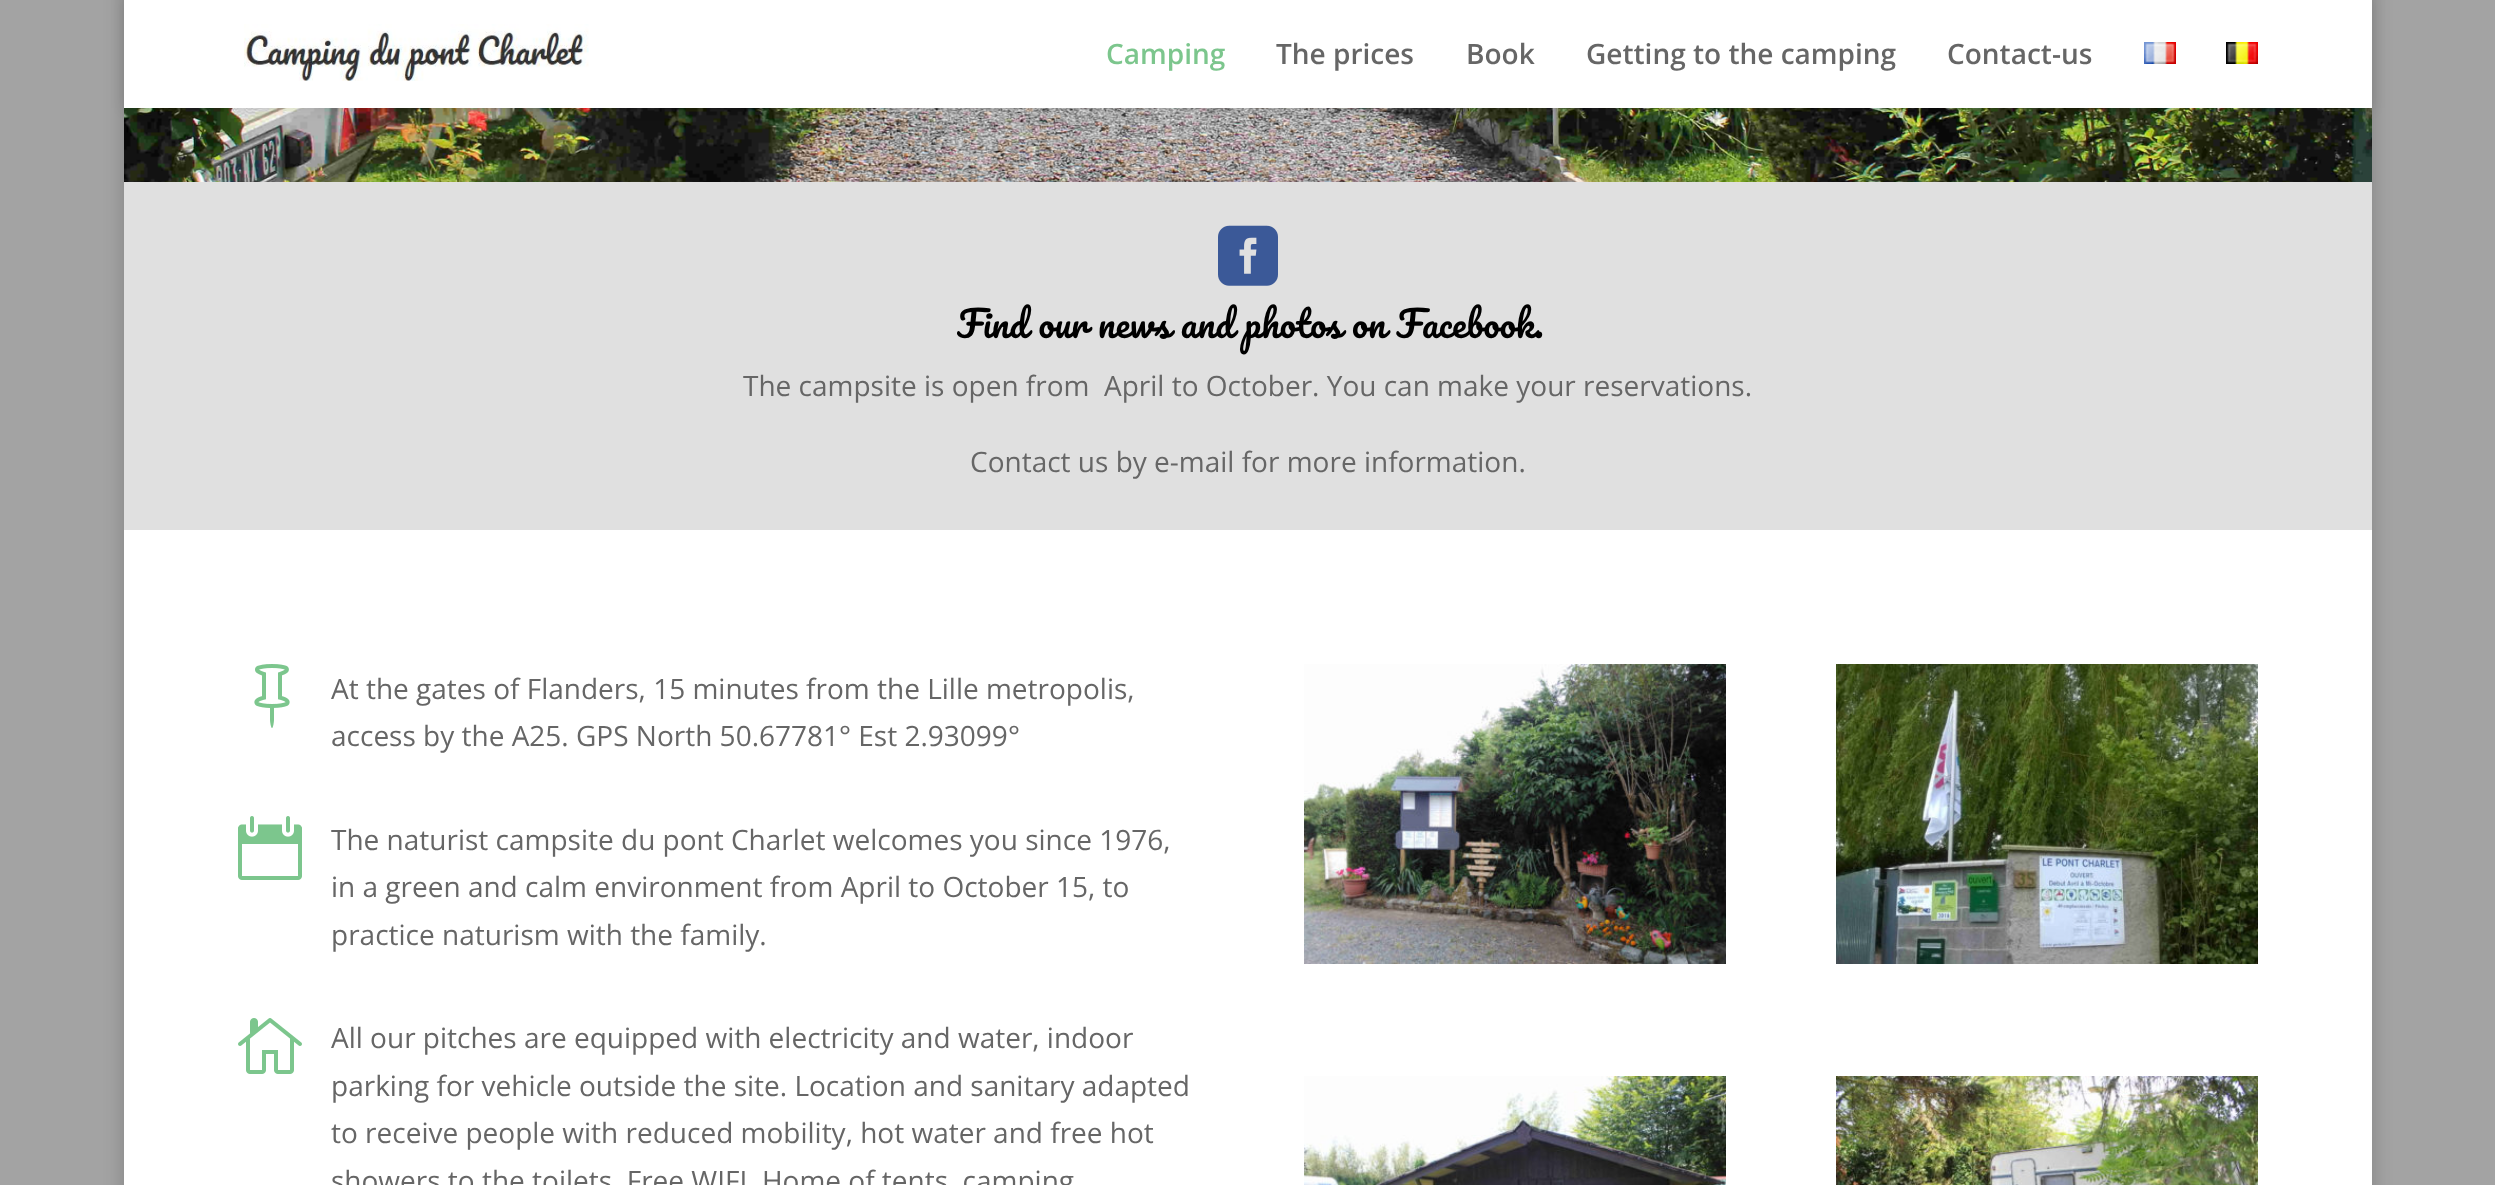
<svg xmlns="http://www.w3.org/2000/svg" width="2495" height="1185" viewBox="0 0 2495 1185">
  <style>*{font-kerning:none!important;font-variant-ligatures:none!important}</style>
  <rect width="100%" height="100%" fill="rgb(163,163,163)"/>
  <rect x="124" y="-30" width="2248" height="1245" fill="rgba(0,0,0,0.2)" filter="blur(10px)"/>
  <image x="124" y="108" width="2248" height="74" href="pic4.png"/>
  <rect x="124" y="0" width="2248" height="108" fill="rgba(0,0,0,0.1)" filter="blur(7px)"/>
  <rect x="124" y="0" width="2248" height="108" fill="rgb(255,255,255)"/>
  <image x="244" y="24" width="345" height="57" href="pic1.png"/>
  <text x="1106" y="64" font-family="Open Sans" font-size="28" font-weight="600" fill="rgb(124,198,141)">Camping</text>
  <g font-family="Open Sans" font-size="28" font-weight="600" fill="rgb(102,102,102)">
    <text x="1276" y="64">The prices</text>
    <text x="1466" y="64">Book</text>
    <text x="1586" y="64">Getting to the camping</text>
    <text x="1947" y="64">Contact-us</text>
  </g>
  <image x="2144" y="42" width="32" height="22" href="pic2.png"/>
  <image x="2226" y="42" width="32" height="22" href="pic3.png"/>
  <rect x="124" y="182" width="2248" height="348" fill="rgb(224,224,224)"/>
  <image x="1218" y="225" width="60" height="61" href="pic5.png"/>
  <text x="957" y="338" word-spacing="0.75" font-family="Pacifico" font-size="36" fill="rgb(0,0,0)">Find our news and photos on Facebook.</text>
  <g font-family="Open Sans" font-size="28" fill="rgb(102,102,102)">
    <text x="743" y="396" xml:space="preserve">The campsite is open from  April to October. You can make your reservations.</text>
    <text x="970" y="472">Contact us by e-mail for more information.</text>
  </g>
  <rect x="124" y="530" width="2248" height="655" fill="rgb(255,255,255)"/>
  <image x="254" y="664" width="36" height="64" href="pic6.png"/>
  <g font-family="Open Sans" font-size="28" fill="rgb(102,102,102)">
    <text>
      <tspan x="331" y="699">At the gates of Flanders, 15 minutes from the Lille metropolis,</tspan>
      <tspan x="331" y="746">access by the A25. GPS North 50.67781° Est 2.93099°</tspan>
    </text>
  </g>
  <image x="238" y="816" width="64" height="64" href="pic7.png"/>
  <g font-family="Open Sans" font-size="28" fill="rgb(102,102,102)">
    <text>
      <tspan x="331" y="850">The naturist campsite du pont Charlet welcomes you since 1976,</tspan>
      <tspan x="331" y="897">in a green and calm environment from April to October 15, to</tspan>
      <tspan x="331" y="945">practice naturism with the family.</tspan>
    </text>
  </g>
  <image x="238" y="1018" width="64" height="56" href="pic8.png"/>
  <g font-family="Open Sans" font-size="28" fill="rgb(102,102,102)">
    <text>
      <tspan x="331" y="1048">All our pitches are equipped with electricity and water, indoor</tspan>
      <tspan x="331" y="1096">parking for vehicle outside the site. Location and sanitary adapted</tspan>
      <tspan x="331" y="1143">to receive people with reduced mobility, hot water and free hot</tspan>
      <tspan x="331" y="1191">showers to the toilets. Free WIFI. Home of tents, camping</tspan>
    </text>
  </g>
  <image x="1304" y="664" width="422" height="300" href="pic9.png"/>
  <image x="1836" y="664" width="422" height="300" href="pic10.png"/>
  <image x="1304" y="1076" width="422" height="109" href="pic11.png"/>
  <image x="1836" y="1076" width="422" height="109" href="pic12.png"/>
</svg>
